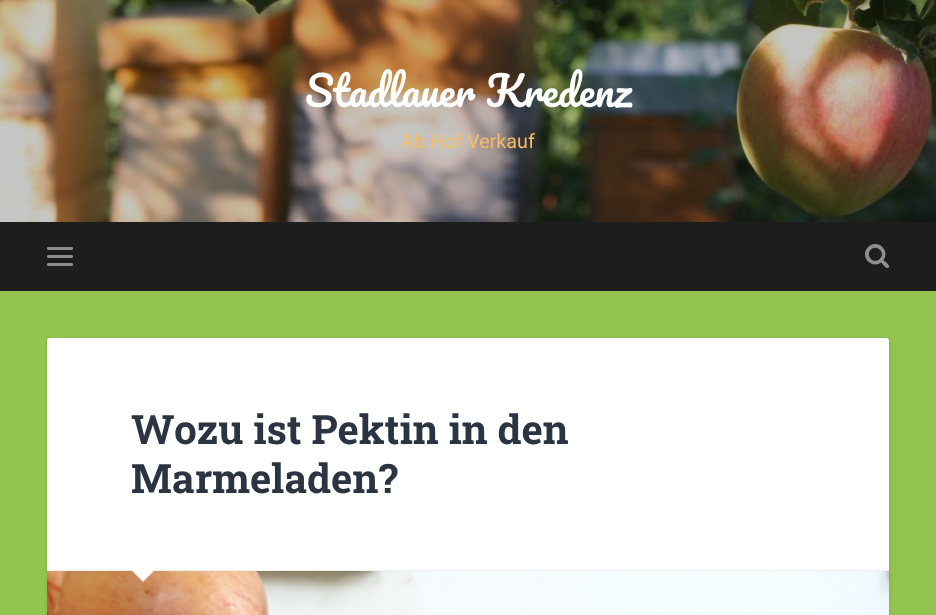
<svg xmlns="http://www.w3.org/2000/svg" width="936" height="615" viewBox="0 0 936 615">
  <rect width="100%" height="100%" fill="rgb(147,195,80)"/>
  <image x="0" y="0" width="936" height="222" href="pic1.png"/>
  <text x="305" y="107" font-family="Pacifico" font-size="40.5" fill="rgb(255,255,255)">Stadlauer Kredenz</text>
  <text x="401" y="148" font-family="Roboto" font-size="19.75" fill="rgb(248,188,99)">Ab Hof Verkauf</text>
  <rect x="0" y="222" width="936" height="69" fill="rgb(29,29,29)"/>
  <rect x="47" y="247" width="26" height="3" rx="1" fill="rgb(142,142,142)"/>
  <rect x="47" y="255" width="26" height="3" rx="1" fill="rgb(142,142,142)"/>
  <rect x="47" y="263" width="26" height="3" rx="1" fill="rgb(142,142,142)"/>
  <image x="865" y="244" width="24" height="24" href="pic2.png"/>
  <rect x="47" y="339" width="842" height="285" rx="3" fill="rgba(0,0,0,0.1)" filter="blur(2px)"/>
  <rect x="47" y="338" width="842" height="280" rx="3" fill="rgb(255,255,255)"/>
  <rect x="47" y="570" width="842" height="1" fill="rgb(238,238,238)"/>
  <g font-family="Roboto Slab" font-size="40.5" font-weight="bold" fill="rgb(43,53,66)">
    <text>
      <tspan x="131" y="444">Wozu ist Pektin in den</tspan>
      <tspan x="131" y="493">Marmeladen?</tspan>
    </text>
  </g>
  <image x="47" y="571" width="842" height="44" href="pic3.png"/>
  <path d="M131 570H155L143 582Z" fill="rgb(238,238,238)"/>
  <path d="M132 569H154L143 580Z" fill="rgb(255,255,255)"/>
</svg>
